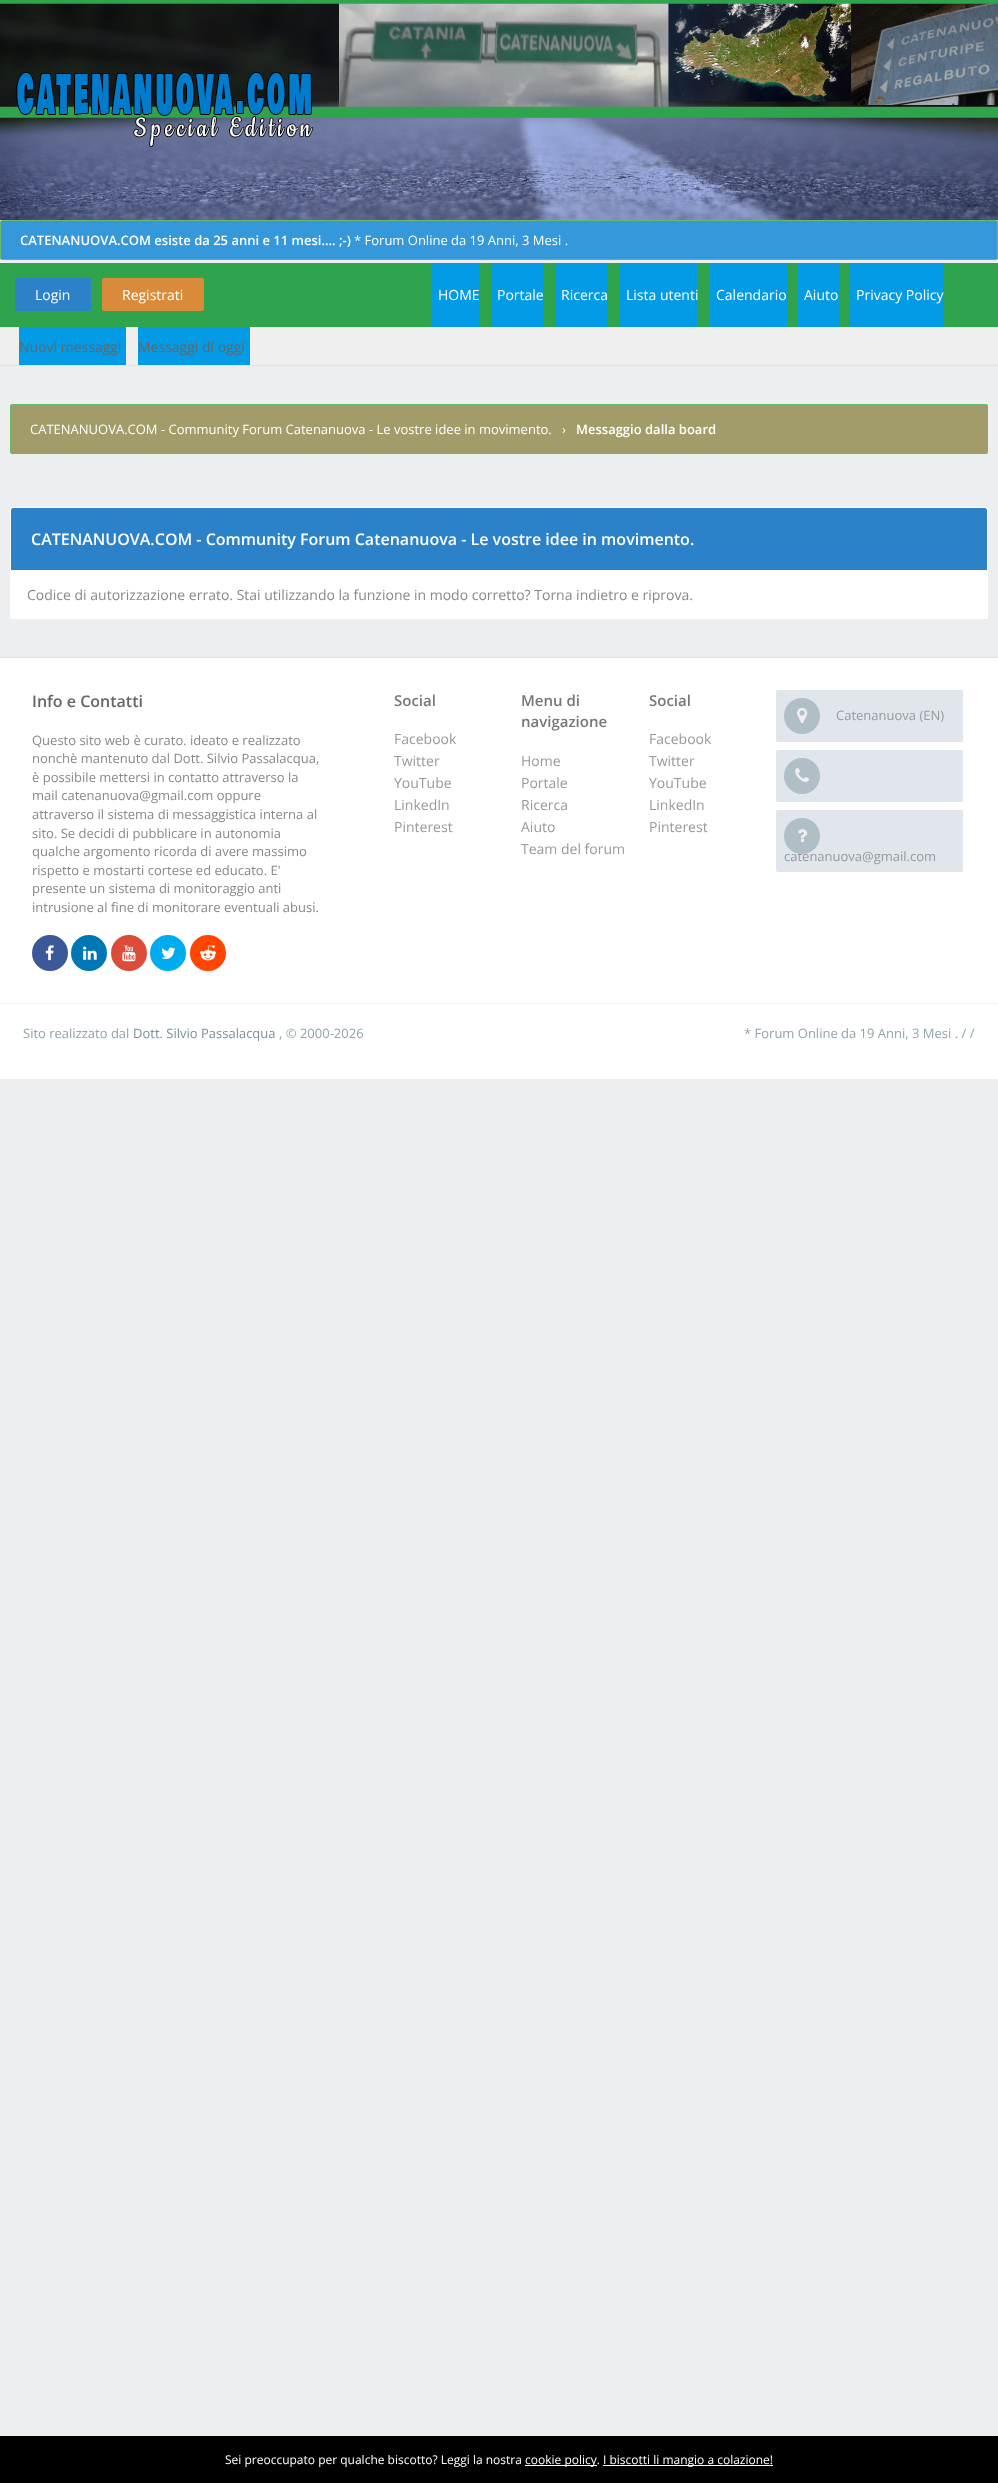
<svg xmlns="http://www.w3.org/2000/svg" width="998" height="2483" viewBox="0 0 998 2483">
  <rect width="100%" height="100%" fill="rgb(236,238,240)"/>
  <image x="0" y="0" width="998" height="220" href="pic1.png"/>
  <image x="16" y="72" width="298" height="76" href="pic2.png"/>
  <rect x="0.5" y="220.5" width="997" height="39" rx="1.5" fill="rgb(52,152,219)" stroke="rgb(102,187,106)"/>
  <text x="20" y="245" font-family="Open Sans" font-size="13" font-weight="600" fill="rgb(255,255,255)">CATENANUOVA.COM esiste da 25 anni e 11 mesi.... ;-)</text>
  <text x="354" y="245" font-family="Open Sans" font-size="13" fill="rgb(255,255,255)">* Forum Online da 19 Anni, 3 Mesi .</text>
  <rect x="0" y="263" width="998" height="64" fill="rgb(47,164,77)"/>
  <rect x="15" y="278" width="76" height="33" rx="2" fill="rgb(44,130,201)"/>
  <text x="35" y="300" font-family="Open Sans" font-size="14" fill="rgb(255,255,255)">Login</text>
  <rect x="102" y="278" width="102" height="33" rx="2" fill="rgb(217,139,58)"/>
  <text x="122" y="300" font-family="Open Sans" font-size="14" fill="rgb(255,255,255)">Registrati</text>
  <rect x="432" y="263" width="47" height="64" fill="rgb(3,155,229)"/>
  <text x="438" y="300" font-family="Open Sans" font-size="14" fill="rgb(255,255,255)">HOME</text>
  <rect x="491" y="263" width="53" height="64" fill="rgb(3,155,229)"/>
  <text x="497" y="300" font-family="Open Sans" font-size="14" fill="rgb(255,255,255)">Portale</text>
  <rect x="555" y="263" width="53" height="64" fill="rgb(3,155,229)"/>
  <text x="561" y="300" font-family="Open Sans" font-size="14" fill="rgb(255,255,255)">Ricerca</text>
  <rect x="620" y="263" width="78" height="64" fill="rgb(3,155,229)"/>
  <text x="626" y="300" font-family="Open Sans" font-size="14" fill="rgb(255,255,255)">Lista utenti</text>
  <rect x="710" y="263" width="77" height="64" fill="rgb(3,155,229)"/>
  <text x="716" y="300" font-family="Open Sans" font-size="14" fill="rgb(255,255,255)">Calendario</text>
  <rect x="798" y="263" width="41" height="64" fill="rgb(3,155,229)"/>
  <text x="804" y="300" font-family="Open Sans" font-size="14" fill="rgb(255,255,255)">Aiuto</text>
  <rect x="850" y="263" width="94" height="64" fill="rgb(3,155,229)"/>
  <text x="856" y="300" font-family="Open Sans" font-size="14" fill="rgb(255,255,255)">Privacy Policy</text>
  <rect x="0" y="327" width="998" height="38" fill="rgb(239,239,239)"/>
  <rect x="0" y="365" width="998" height="1" fill="rgb(227,227,227)"/>
  <rect x="19" y="327" width="107" height="38" fill="rgb(3,155,229)"/>
  <text x="19" y="352" font-family="Open Sans" font-size="14" fill="rgb(102,102,102)">Nuovi messaggi</text>
  <rect x="138" y="327" width="112" height="38" fill="rgb(3,155,229)"/>
  <text x="138" y="352" font-family="Open Sans" font-size="14" fill="rgb(102,102,102)">Messaggi di oggi</text>
  <rect x="10.5" y="404.5" width="977" height="49" rx="1.5" fill="rgb(161,156,105)" stroke="rgb(102,187,106)"/>
  <g font-family="Open Sans" font-size="13" fill="rgb(255,255,255)">
    <text x="30" y="434">CATENANUOVA.COM - Community Forum Catenanuova - Le vostre idee in movimento.</text>
    <text x="562" y="434">›</text>
  </g>
  <text x="576" y="434" font-family="Open Sans" font-size="13" font-weight="600" fill="rgb(255,255,255)">Messaggio dalla board</text>
  <rect x="10" y="507" width="978" height="112" rx="2" fill="rgb(255,255,255)"/>
  <path d="M13 508H985C986 508 987 509 987 510V570H11V510C11 509 12 508 13 508Z" fill="rgb(44,130,201)"/>
  <text x="31" y="545" font-family="Open Sans" font-size="16" font-weight="600" fill="rgb(255,255,255)">CATENANUOVA.COM - Community Forum Catenanuova - Le vostre idee in movimento.</text>
  <text x="27" y="600" font-family="Open Sans" font-size="14" fill="rgb(136,136,136)">Codice di autorizzazione errato. Stai utilizzando la funzione in modo corretto? Torna indietro e riprova.</text>
  <rect x="0" y="658" width="998" height="345" fill="rgb(255,255,255)"/>
  <rect x="0" y="657" width="998" height="1" fill="rgb(221,221,221)"/>
  <text x="32" y="707" font-family="Open Sans" font-size="16" font-weight="600" fill="rgb(102,102,102)">Info e Contatti</text>
  <g font-family="Open Sans" font-size="13" fill="rgb(136,136,136)">
    <text>
      <tspan x="32" y="745">Questo sito web è curato. ideato e realizzato</tspan>
      <tspan x="32" y="763">nonchè mantenuto dal Dott. Silvio Passalacqua,</tspan>
      <tspan x="32" y="782">è possibile mettersi in contatto attraverso la</tspan>
      <tspan x="32" y="800">mail catenanuova@gmail.com oppure</tspan>
      <tspan x="32" y="819">attraverso il sistema di messaggistica interna al</tspan>
      <tspan x="32" y="838">sito. Se decidi di pubblicare in autonomia</tspan>
      <tspan x="32" y="856">qualche argomento ricorda di avere massimo</tspan>
      <tspan x="32" y="875">rispetto e mostarti cortese ed educato. E'</tspan>
      <tspan x="32" y="893">presente un sistema di monitoraggio anti</tspan>
      <tspan x="32" y="912">intrusione al fine di monitorare eventuali abusi.</tspan>
    </text>
  </g>
  <circle cx="50" cy="953" r="17" fill="rgb(59,89,152)" stroke="rgb(59,89,152)" stroke-width="2"/>
  <image x="45" y="945" width="9" height="16" href="pic3.png"/>
  <circle cx="89" cy="953" r="17" fill="rgb(0,119,181)" stroke="rgb(0,119,181)" stroke-width="2"/>
  <image x="83" y="946" width="14" height="14" href="pic4.png"/>
  <circle cx="129" cy="953" r="17" fill="rgb(221,75,57)" stroke="rgb(221,75,57)" stroke-width="2"/>
  <image x="122" y="945" width="14" height="17" href="pic5.png"/>
  <circle cx="168" cy="953" r="17" fill="rgb(0,172,237)" stroke="rgb(0,172,237)" stroke-width="2"/>
  <image x="161" y="947" width="15" height="12" href="pic6.png"/>
  <circle cx="208" cy="953" r="17" fill="rgb(255,69,0)" stroke="rgb(255,69,0)" stroke-width="2"/>
  <image x="200" y="945" width="16" height="16" href="pic7.png"/>
  <text x="394" y="706" font-family="Open Sans" font-size="15" font-weight="600" fill="rgb(119,119,119)">Social</text>
  <g font-family="Open Sans" font-size="14" fill="rgb(153,153,153)">
    <text>
      <tspan x="394" y="744">Facebook</tspan>
      <tspan x="394" y="766">Twitter</tspan>
      <tspan x="394" y="788">YouTube</tspan>
      <tspan x="394" y="810">LinkedIn</tspan>
      <tspan x="394" y="832">Pinterest</tspan>
    </text>
  </g>
  <g font-family="Open Sans" font-size="15" font-weight="600" fill="rgb(119,119,119)">
    <text>
      <tspan x="521" y="706">Menu di</tspan>
      <tspan x="521" y="727">navigazione</tspan>
    </text>
  </g>
  <g font-family="Open Sans" font-size="14" fill="rgb(153,153,153)">
    <text>
      <tspan x="521" y="766">Home</tspan>
      <tspan x="521" y="788">Portale</tspan>
      <tspan x="521" y="810">Ricerca</tspan>
      <tspan x="521" y="832">Aiuto</tspan>
      <tspan x="521" y="854">Team del forum</tspan>
    </text>
  </g>
  <text x="649" y="706" font-family="Open Sans" font-size="15" font-weight="600" fill="rgb(119,119,119)">Social</text>
  <g font-family="Open Sans" font-size="14" fill="rgb(153,153,153)">
    <text>
      <tspan x="649" y="744">Facebook</tspan>
      <tspan x="649" y="766">Twitter</tspan>
      <tspan x="649" y="788">YouTube</tspan>
      <tspan x="649" y="810">LinkedIn</tspan>
      <tspan x="649" y="832">Pinterest</tspan>
    </text>
  </g>
  <rect x="776" y="690" width="187" height="52" rx="2" fill="rgb(224,230,236)"/>
  <circle cx="802" cy="716" r="18" fill="rgb(176,190,197)"/>
  <image x="797" y="707" width="11" height="17" href="pic8.png"/>
  <text x="836" y="720" font-family="Open Sans" font-size="13" fill="rgb(153,153,153)">Catenanuova (EN)</text>
  <rect x="776" y="750" width="187" height="52" rx="2" fill="rgb(224,230,236)"/>
  <circle cx="802" cy="776" r="18" fill="rgb(176,190,197)"/>
  <image x="795" y="767" width="15" height="15" href="pic9.png"/>
  <rect x="776" y="810" width="187" height="62" rx="2" fill="rgb(224,230,236)"/>
  <text x="784" y="861" font-family="Open Sans" font-size="13" fill="rgb(153,153,153)">catenanuova@gmail.com</text>
  <circle cx="802" cy="836" r="18" fill="rgb(176,190,197)"/>
  <image x="798" y="829" width="10" height="13" href="pic10.png"/>
  <rect x="0" y="1004" width="998" height="75" fill="rgb(255,255,255)"/>
  <rect x="0" y="1003" width="998" height="1" fill="rgb(235,241,247)"/>
  <text x="23" y="1038" font-family="Open Sans" font-size="13" fill="rgb(144,164,174)">Sito realizzato dal</text>
  <text x="133" y="1038" font-family="Open Sans" font-size="13" fill="rgb(120,144,156)">Dott. Silvio Passalacqua</text>
  <g font-family="Open Sans" font-size="13" fill="rgb(144,164,174)">
    <text x="279" y="1038">, © 2000-2026</text>
    <text x="744" y="1038">* Forum Online da 19 Anni, 3 Mesi . / /</text>
  </g>
  <rect x="0" y="2436" width="998" height="47" fill="rgb(0,0,0)"/>
  <text x="225" y="2464" font-family="Open Sans" font-size="12" fill="rgb(255,255,255)">Sei preoccupato per qualche biscotto? Leggi la nostra</text>
  <rect x="525" y="2465" width="72" height="1" fill="rgb(255,255,255)"/>
  <text x="525" y="2464" font-family="Open Sans" font-size="12" fill="rgb(255,255,255)">cookie policy.</text>
  <rect x="603" y="2465" width="170" height="1" fill="rgb(255,255,255)"/>
  <text x="603" y="2464" font-family="Open Sans" font-size="12" fill="rgb(255,255,255)">I biscotti li mangio a colazione!</text>
</svg>
